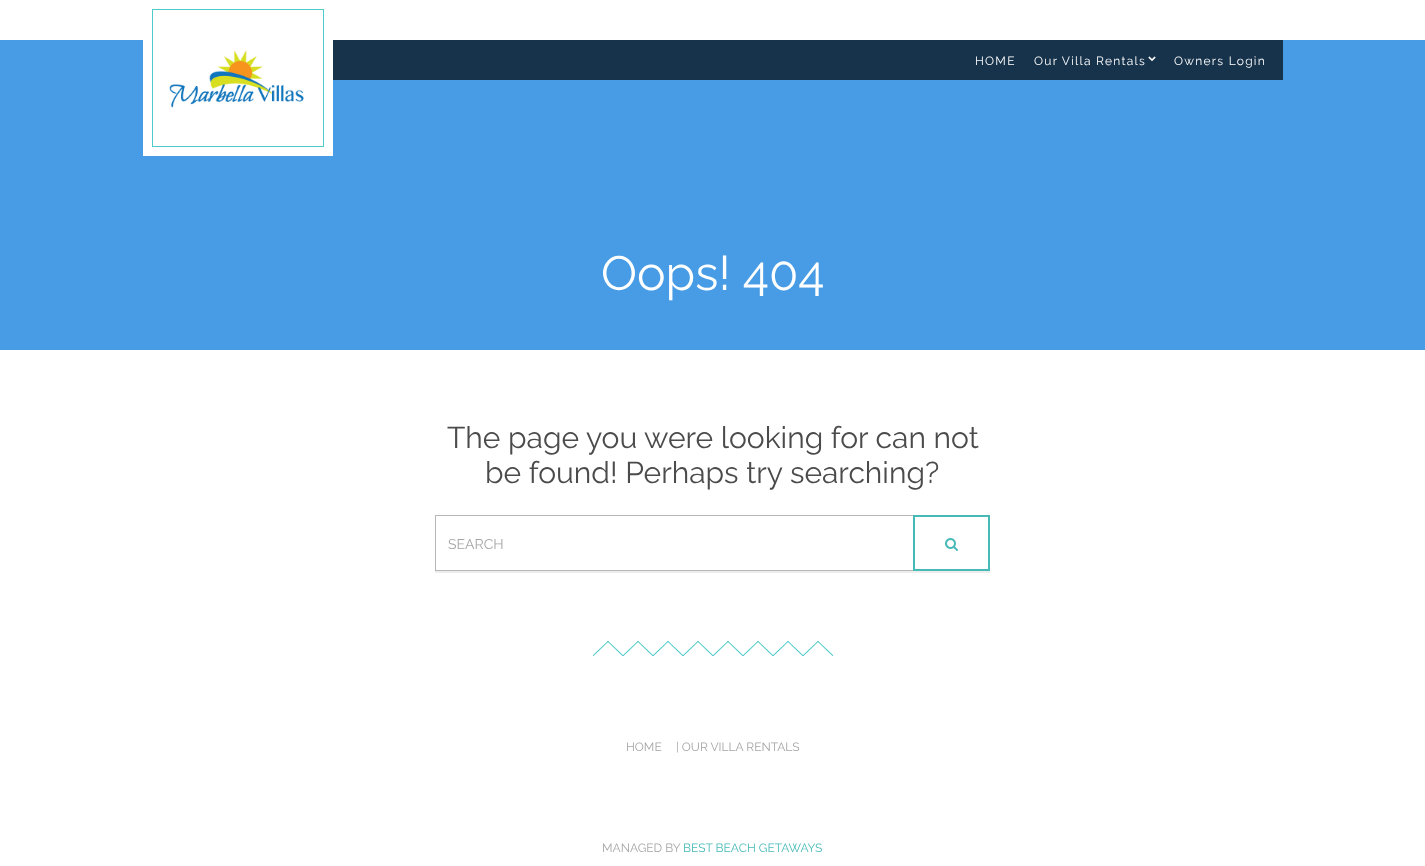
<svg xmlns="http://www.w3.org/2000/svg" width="1425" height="866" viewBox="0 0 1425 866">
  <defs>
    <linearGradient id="g1" gradientUnits="userSpaceOnUse" x1="573" y1="660" x2="595" y2="637"><stop offset="0.5" stop-color="rgb(255,255,255)"/><stop offset="0.53" stop-color="rgb(78,202,200)"/><stop offset="0.56" stop-color="rgb(255,255,255)"/></linearGradient>
    <linearGradient id="g2" gradientUnits="userSpaceOnUse" x1="603" y1="660" x2="625" y2="637"><stop offset="0.5" stop-color="rgb(255,255,255)"/><stop offset="0.53" stop-color="rgb(78,202,200)"/><stop offset="0.56" stop-color="rgb(255,255,255)"/></linearGradient>
    <linearGradient id="g3" gradientUnits="userSpaceOnUse" x1="633" y1="660" x2="655" y2="637"><stop offset="0.5" stop-color="rgb(255,255,255)"/><stop offset="0.53" stop-color="rgb(78,202,200)"/><stop offset="0.56" stop-color="rgb(255,255,255)"/></linearGradient>
    <linearGradient id="g4" gradientUnits="userSpaceOnUse" x1="663" y1="660" x2="685" y2="637"><stop offset="0.5" stop-color="rgb(255,255,255)"/><stop offset="0.53" stop-color="rgb(78,202,200)"/><stop offset="0.56" stop-color="rgb(255,255,255)"/></linearGradient>
    <linearGradient id="g5" gradientUnits="userSpaceOnUse" x1="693" y1="660" x2="715" y2="637"><stop offset="0.5" stop-color="rgb(255,255,255)"/><stop offset="0.53" stop-color="rgb(78,202,200)"/><stop offset="0.56" stop-color="rgb(255,255,255)"/></linearGradient>
    <linearGradient id="g6" gradientUnits="userSpaceOnUse" x1="723" y1="660" x2="745" y2="637"><stop offset="0.5" stop-color="rgb(255,255,255)"/><stop offset="0.53" stop-color="rgb(78,202,200)"/><stop offset="0.56" stop-color="rgb(255,255,255)"/></linearGradient>
    <linearGradient id="g7" gradientUnits="userSpaceOnUse" x1="753" y1="660" x2="775" y2="637"><stop offset="0.5" stop-color="rgb(255,255,255)"/><stop offset="0.53" stop-color="rgb(78,202,200)"/><stop offset="0.56" stop-color="rgb(255,255,255)"/></linearGradient>
    <linearGradient id="g8" gradientUnits="userSpaceOnUse" x1="783" y1="660" x2="805" y2="637"><stop offset="0.5" stop-color="rgb(255,255,255)"/><stop offset="0.53" stop-color="rgb(78,202,200)"/><stop offset="0.56" stop-color="rgb(255,255,255)"/></linearGradient>
    <linearGradient id="g9" gradientUnits="userSpaceOnUse" x1="813" y1="660" x2="835" y2="637"><stop offset="0.5" stop-color="rgb(255,255,255)"/><stop offset="0.53" stop-color="rgb(78,202,200)"/><stop offset="0.56" stop-color="rgb(255,255,255)"/></linearGradient>
    <linearGradient id="g10" gradientUnits="userSpaceOnUse" x1="613" y1="660" x2="591" y2="637"><stop offset="0.5" stop-color="rgb(78,202,200)" stop-opacity="0"/><stop offset="0.53" stop-color="rgb(78,202,200)"/><stop offset="0.56" stop-color="rgb(78,202,200)" stop-opacity="0"/></linearGradient>
    <linearGradient id="g11" gradientUnits="userSpaceOnUse" x1="643" y1="660" x2="621" y2="637"><stop offset="0.5" stop-color="rgb(78,202,200)" stop-opacity="0"/><stop offset="0.53" stop-color="rgb(78,202,200)"/><stop offset="0.56" stop-color="rgb(78,202,200)" stop-opacity="0"/></linearGradient>
    <linearGradient id="g12" gradientUnits="userSpaceOnUse" x1="673" y1="660" x2="651" y2="637"><stop offset="0.5" stop-color="rgb(78,202,200)" stop-opacity="0"/><stop offset="0.53" stop-color="rgb(78,202,200)"/><stop offset="0.56" stop-color="rgb(78,202,200)" stop-opacity="0"/></linearGradient>
    <linearGradient id="g13" gradientUnits="userSpaceOnUse" x1="703" y1="660" x2="681" y2="637"><stop offset="0.5" stop-color="rgb(78,202,200)" stop-opacity="0"/><stop offset="0.53" stop-color="rgb(78,202,200)"/><stop offset="0.56" stop-color="rgb(78,202,200)" stop-opacity="0"/></linearGradient>
    <linearGradient id="g14" gradientUnits="userSpaceOnUse" x1="733" y1="660" x2="711" y2="637"><stop offset="0.5" stop-color="rgb(78,202,200)" stop-opacity="0"/><stop offset="0.53" stop-color="rgb(78,202,200)"/><stop offset="0.56" stop-color="rgb(78,202,200)" stop-opacity="0"/></linearGradient>
    <linearGradient id="g15" gradientUnits="userSpaceOnUse" x1="763" y1="660" x2="741" y2="637"><stop offset="0.5" stop-color="rgb(78,202,200)" stop-opacity="0"/><stop offset="0.53" stop-color="rgb(78,202,200)"/><stop offset="0.56" stop-color="rgb(78,202,200)" stop-opacity="0"/></linearGradient>
    <linearGradient id="g16" gradientUnits="userSpaceOnUse" x1="793" y1="660" x2="771" y2="637"><stop offset="0.5" stop-color="rgb(78,202,200)" stop-opacity="0"/><stop offset="0.53" stop-color="rgb(78,202,200)"/><stop offset="0.56" stop-color="rgb(78,202,200)" stop-opacity="0"/></linearGradient>
    <linearGradient id="g17" gradientUnits="userSpaceOnUse" x1="823" y1="660" x2="801" y2="637"><stop offset="0.5" stop-color="rgb(78,202,200)" stop-opacity="0"/><stop offset="0.53" stop-color="rgb(78,202,200)"/><stop offset="0.56" stop-color="rgb(78,202,200)" stop-opacity="0"/></linearGradient>
    <linearGradient id="g18" gradientUnits="userSpaceOnUse" x1="853" y1="660" x2="831" y2="637"><stop offset="0.5" stop-color="rgb(78,202,200)" stop-opacity="0"/><stop offset="0.53" stop-color="rgb(78,202,200)"/><stop offset="0.56" stop-color="rgb(78,202,200)" stop-opacity="0"/></linearGradient>
  </defs>
  <rect width="100%" height="100%" fill="rgb(255,255,255)"/>
  <rect x="0" y="40" width="1425" height="310" fill="rgb(71,156,229)"/>
  <rect x="333" y="40" width="950" height="40" fill="rgb(23,51,76)"/>
  <rect x="143" y="40" width="190" height="116" fill="rgb(255,255,255)"/>
  <rect x="152.5" y="9.5" width="171" height="137" fill="none" stroke="rgb(78,202,200)"/>
  <image x="169" y="50" width="135" height="58" href="pic1.png"/>
  <g font-family="Raleway" font-size="12" letter-spacing="1.25" fill="rgb(255,255,255)">
    <text x="975" y="65">HOME</text>
    <text x="1034" y="65">Our Villa Rentals</text>
  </g>
  <image x="1148" y="56" width="8" height="6" href="pic2.png"/>
  <text x="1174" y="65" font-family="Raleway" font-size="12" letter-spacing="1.25" fill="rgb(255,255,255)">Owners Login</text>
  <text x="601" y="290" font-family="Raleway" font-size="48" fill="rgb(255,255,255)">Oops! 404</text>
  <g font-family="Raleway" font-size="30" fill="rgb(75,75,75)">
    <text x="447" y="448">The page you were looking for can not</text>
    <text x="485" y="483">be found! Perhaps try searching?</text>
  </g>
  <rect x="435" y="571" width="555" height="2" fill="rgb(237,237,237)"/>
  <rect x="435.5" y="515.5" width="554" height="55" fill="none" stroke="rgb(183,183,183)"/>
  <text x="448" y="549" font-family="Raleway" font-size="14" fill="rgb(165,165,165)">SEARCH</text>
  <rect x="914" y="516" width="75" height="54" fill="none" stroke="rgb(71,186,184)" stroke-width="2"/>
  <image x="945" y="538" width="13" height="13" href="pic3.png"/>
  <rect x="593" y="655" width="1" height="1" fill="url(#g1)"/>
  <rect x="607" y="641" width="17" height="15" fill="url(#g2)"/>
  <rect x="637" y="641" width="17" height="15" fill="url(#g3)"/>
  <rect x="667" y="641" width="17" height="15" fill="url(#g4)"/>
  <rect x="697" y="641" width="17" height="15" fill="url(#g5)"/>
  <rect x="727" y="641" width="17" height="15" fill="url(#g6)"/>
  <rect x="757" y="641" width="17" height="15" fill="url(#g7)"/>
  <rect x="787" y="641" width="17" height="15" fill="url(#g8)"/>
  <rect x="817" y="641" width="16" height="15" fill="url(#g9)"/>
  <rect x="593" y="641" width="16" height="15" fill="url(#g10)"/>
  <rect x="622" y="641" width="17" height="15" fill="url(#g11)"/>
  <rect x="652" y="641" width="17" height="15" fill="url(#g12)"/>
  <rect x="682" y="641" width="17" height="15" fill="url(#g13)"/>
  <rect x="712" y="641" width="17" height="15" fill="url(#g14)"/>
  <rect x="742" y="641" width="17" height="15" fill="url(#g15)"/>
  <rect x="772" y="641" width="17" height="15" fill="url(#g16)"/>
  <rect x="802" y="641" width="17" height="15" fill="url(#g17)"/>
  <rect x="832" y="655" width="1" height="1" fill="url(#g18)"/>
  <g font-family="Raleway" font-size="12" fill="rgb(165,165,165)">
    <text x="626" y="751">HOME</text>
    <text x="676" y="751">| OUR VILLA RENTALS</text>
    <text x="602" y="852">MANAGED BY</text>
  </g>
  <text x="683" y="852" font-family="Raleway" font-size="12" fill="rgb(71,186,184)">BEST BEACH GETAWAYS</text>
</svg>
